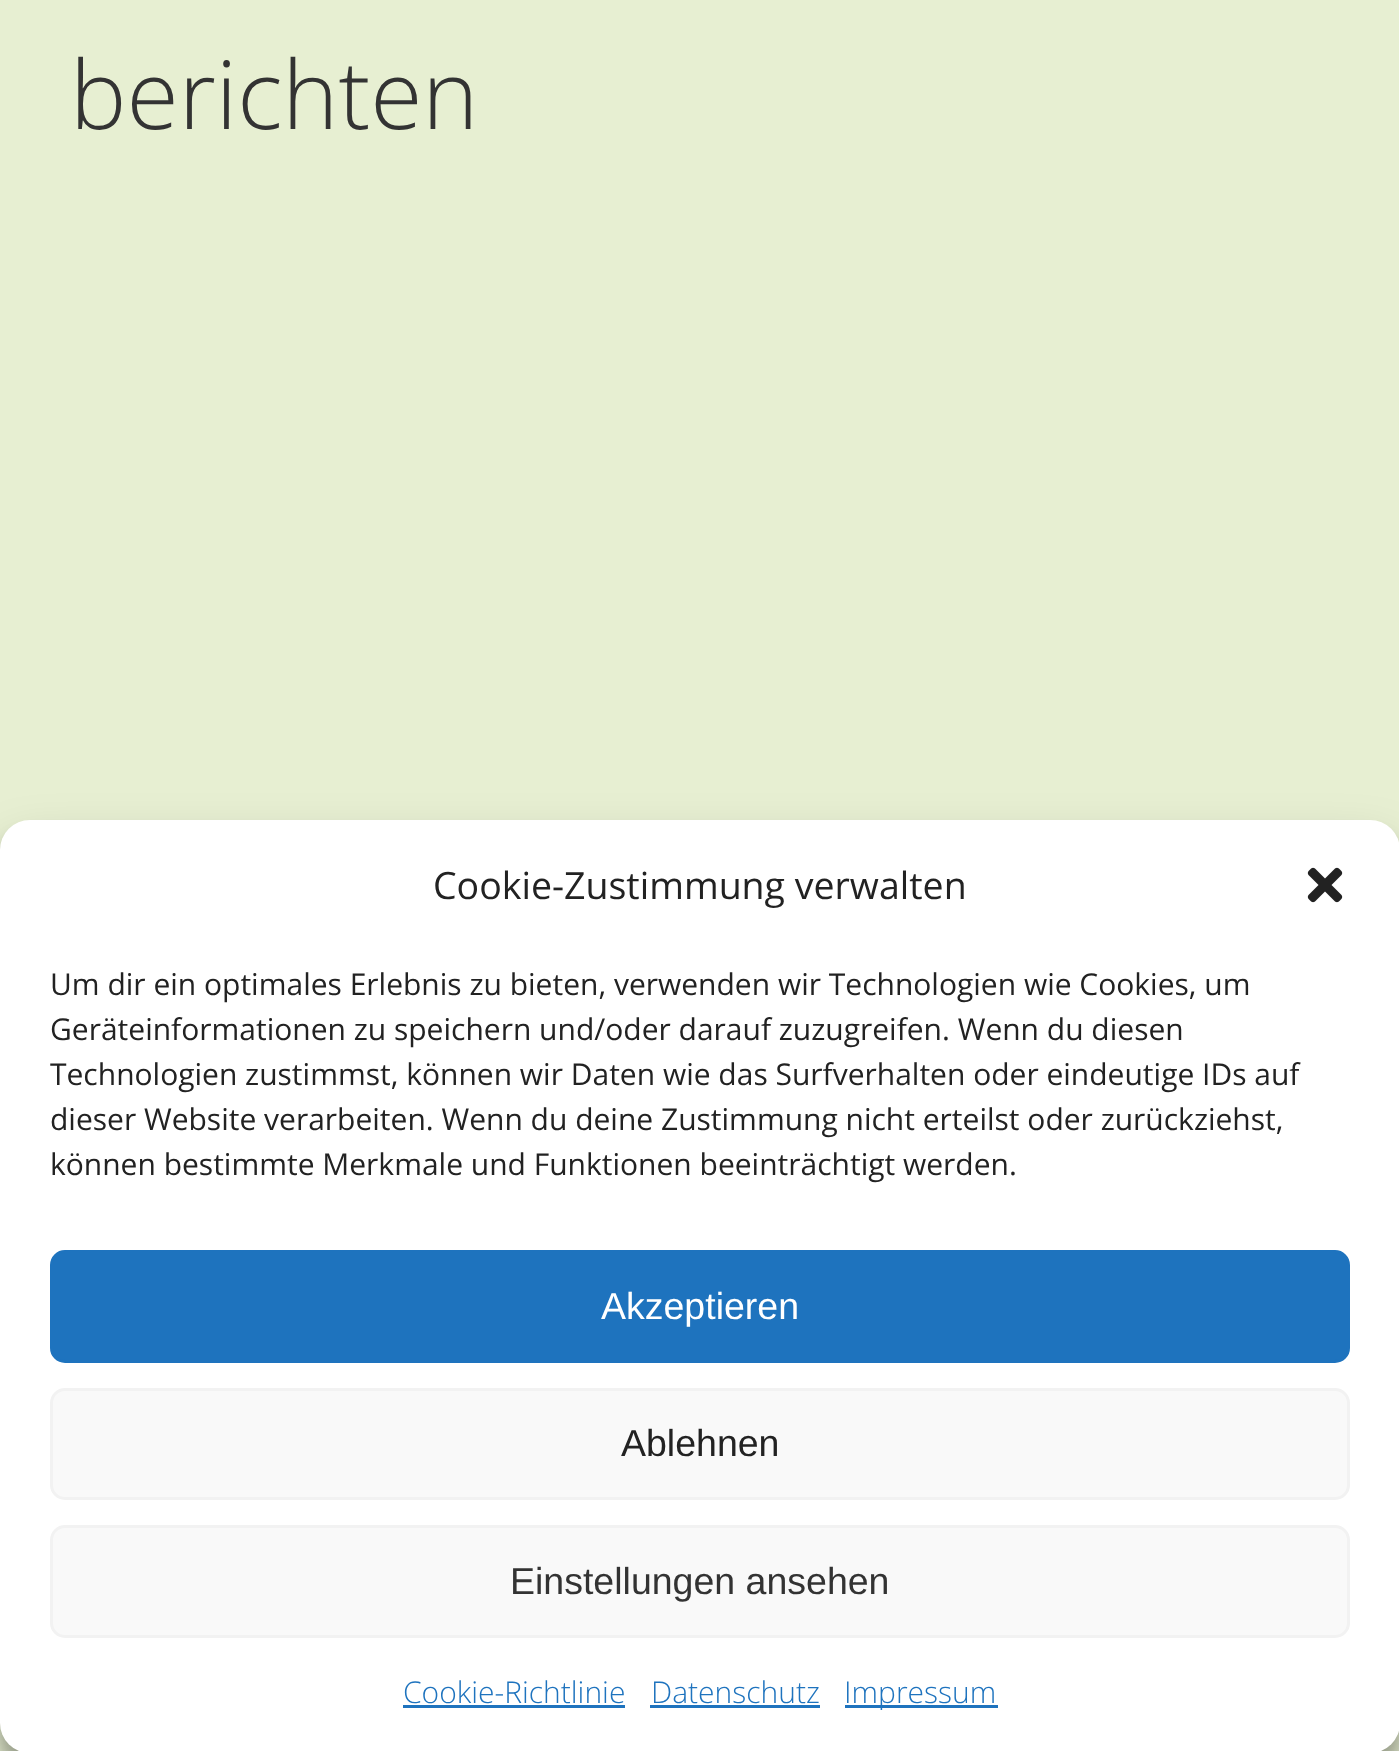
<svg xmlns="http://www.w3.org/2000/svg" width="1399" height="1751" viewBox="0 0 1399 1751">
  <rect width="100%" height="100%" fill="rgb(231,239,210)"/>
  <text x="70" y="129" font-family="Open Sans" font-size="95" font-weight="300" fill="rgb(51,51,51)">berichten</text>
  <rect x="0" y="835" width="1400" height="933" rx="30" fill="rgba(0,0,0,0.23)" filter="blur(7.5px)"/>
  <rect x="0" y="845" width="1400" height="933" rx="30" fill="rgba(0,0,0,0.19)" filter="blur(25px)"/>
  <rect x="0" y="820" width="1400" height="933" rx="30" fill="rgb(255,255,255)"/>
  <text x="433" y="899" font-family="Open Sans" font-size="37.5" fill="rgb(34,34,34)">Cookie-Zustimmung verwalten</text>
  <image x="1307" y="867" width="36" height="36" href="pic1.png"/>
  <g font-family="Open Sans" font-size="30" fill="rgb(34,34,34)">
    <text>
      <tspan x="50" y="995">Um dir ein optimales Erlebnis zu bieten, verwenden wir Technologien wie Cookies, um</tspan>
      <tspan x="50" y="1040">Geräteinformationen zu speichern und/oder darauf zuzugreifen. Wenn du diesen</tspan>
      <tspan x="50" y="1085">Technologien zustimmst, können wir Daten wie das Surfverhalten oder eindeutige IDs auf</tspan>
      <tspan x="50" y="1130">dieser Website verarbeiten. Wenn du deine Zustimmung nicht erteilst oder zurückziehst,</tspan>
      <tspan x="50" y="1175">können bestimmte Merkmale und Funktionen beeinträchtigt werden.</tspan>
    </text>
  </g>
  <rect x="51.5" y="1251.5" width="1297" height="110" rx="13.5" fill="rgb(30,115,190)" stroke="rgb(30,115,190)" stroke-width="3"/>
  <text x="601" y="1319" font-family="Liberation Sans" font-size="37.5" fill="rgb(255,255,255)">Akzeptieren</text>
  <rect x="51.5" y="1389.5" width="1297" height="109" rx="13.5" fill="rgb(249,249,249)" stroke="rgb(242,242,242)" stroke-width="3"/>
  <text x="621" y="1456" font-family="Liberation Sans" font-size="37.5" fill="rgb(34,34,34)">Ablehnen</text>
  <rect x="51.5" y="1526.5" width="1297" height="110" rx="13.5" fill="rgb(249,249,249)" stroke="rgb(242,242,242)" stroke-width="3"/>
  <text x="510" y="1594" font-family="Liberation Sans" font-size="37.5" fill="rgb(51,51,51)">Einstellungen ansehen</text>
  <text x="403" y="1703" font-family="Open Sans" font-size="30" font-weight="300" fill="rgb(30,115,190)">Cookie-Richtlinie</text>
  <rect x="403" y="1705" width="222" height="3" fill="rgb(30,115,190)"/>
  <text x="651" y="1703" font-family="Open Sans" font-size="30" font-weight="300" fill="rgb(30,115,190)">Datenschutz</text>
  <rect x="650" y="1705" width="170" height="3" fill="rgb(30,115,190)"/>
  <rect x="845" y="1705" width="153" height="3" fill="rgb(30,115,190)"/>
  <text x="844" y="1703" font-family="Open Sans" font-size="30" font-weight="300" fill="rgb(30,115,190)">Impressum</text>
</svg>
